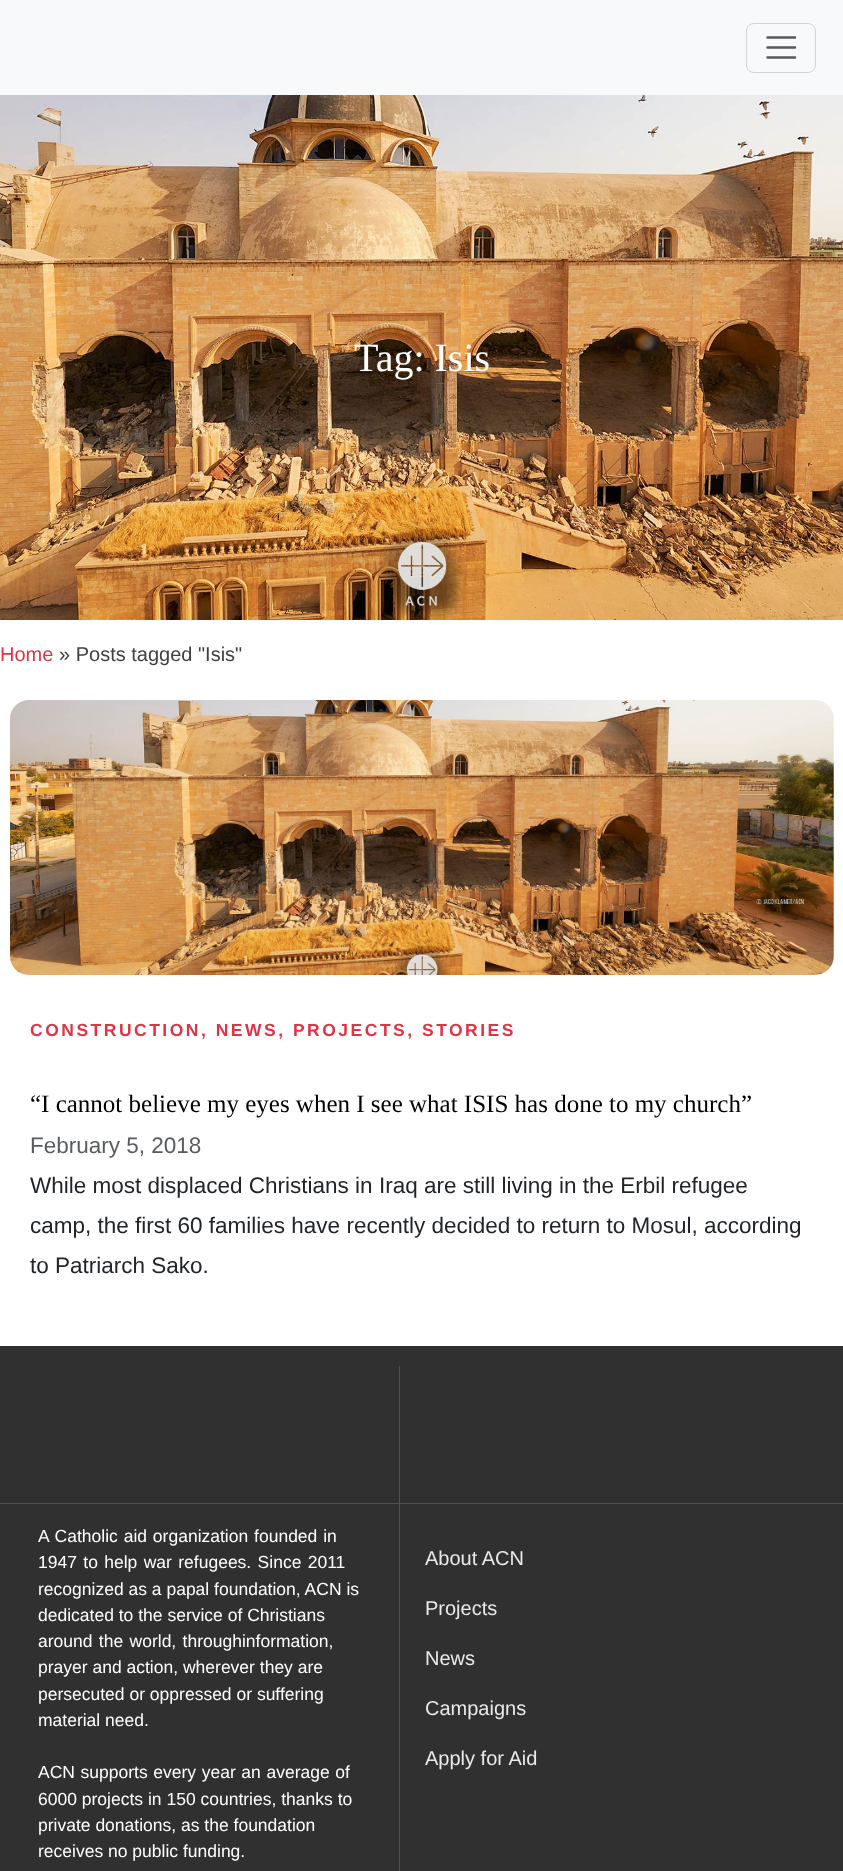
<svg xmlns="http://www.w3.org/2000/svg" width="843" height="1871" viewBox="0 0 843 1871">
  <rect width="100%" height="100%" fill="rgb(255,255,255)"/>
  <rect x="0" y="0" width="843" height="95" fill="rgb(248,249,250)"/>
  <rect x="746.5" y="23.5" width="69" height="49" rx="7.5" fill="none" stroke="rgb(211,212,213)"/>
  <path d="M767.5 37.5H795M767.5 47.5H795M767.5 57.5H795" fill="none" stroke="rgb(87,90,93)" stroke-width="2.5" stroke-linecap="round"/>
  <image x="0" y="95" width="843" height="525" href="pic1.png"/>
  <text x="354" y="371" font-family="Liberation Serif" font-size="40" fill="rgb(255,255,255)">Tag: Isis</text>
  <text x="0" y="661" font-family="Liberation Sans" font-size="20" fill="rgb(220,53,69)">Home</text>
  <text x="59" y="661" font-family="Liberation Sans" font-size="20" fill="rgb(64,64,64)">» Posts tagged "Isis"</text>
  <image x="10" y="700" width="824" height="275" href="pic2.png"/>
  <text x="30" y="1036" font-family="Liberation Sans" font-size="17.5" font-weight="bold" letter-spacing="2.5" fill="rgb(220,53,69)">CONSTRUCTION, NEWS, PROJECTS, STORIES</text>
  <text x="30" y="1112" font-family="Liberation Serif" font-size="25" fill="rgb(0,0,0)">“I cannot believe my eyes when I see what ISIS has done to my church”</text>
  <text x="30" y="1153" font-family="Liberation Sans" font-size="22.5" fill="rgb(89,92,95)">February 5, 2018</text>
  <g font-family="Liberation Sans" font-size="22.5" fill="rgb(33,37,41)">
    <text>
      <tspan x="30" y="1193">While most displaced Christians in Iraq are still living in the Erbil refugee</tspan>
      <tspan x="30" y="1233">camp, the first 60 families have recently decided to return to Mosul, according</tspan>
      <tspan x="30" y="1273">to Patriarch Sako.</tspan>
    </text>
  </g>
  <rect x="0" y="1346" width="843" height="525" fill="rgb(48,48,48)"/>
  <rect x="399" y="1366" width="1" height="137" fill="rgb(81,81,81)"/>
  <rect x="0" y="1503" width="843" height="1" fill="rgb(81,81,81)"/>
  <rect x="399" y="1504" width="1" height="367" fill="rgb(81,81,81)"/>
  <g font-family="Liberation Sans" font-size="17.5" fill="rgb(255,255,255)">
    <text>
      <tspan x="38" y="1542" word-spacing="1">A Catholic aid organization founded in</tspan>
      <tspan x="38" y="1568" word-spacing="1.5">1947 to help war refugees. Since 2011</tspan>
      <tspan x="38" y="1595">recognized as a papal foundation, ACN is</tspan>
      <tspan x="38" y="1621">dedicated to the service of Christians</tspan>
      <tspan x="38" y="1647" word-spacing="1.5">around the world, throughinformation,</tspan>
      <tspan x="38" y="1673">prayer and action, wherever they are</tspan>
      <tspan x="38" y="1700">persecuted or oppressed or suffering</tspan>
      <tspan x="38" y="1726">material need.</tspan>
    </text>
    <text>
      <tspan x="38" y="1778" word-spacing="0.75">ACN supports every year an average of</tspan>
      <tspan x="38" y="1805">6000 projects in 150 countries, thanks to</tspan>
      <tspan x="38" y="1831">private donations, as the foundation</tspan>
      <tspan x="38" y="1857">receives no public funding.</tspan>
    </text>
  </g>
  <g font-family="Liberation Sans" font-size="20" fill="rgb(234,234,234)">
    <text x="425" y="1565">About ACN</text>
    <text x="425" y="1615">Projects</text>
    <text x="425" y="1665">News</text>
    <text x="425" y="1715">Campaigns</text>
    <text x="425" y="1765">Apply for Aid</text>
  </g>
</svg>
